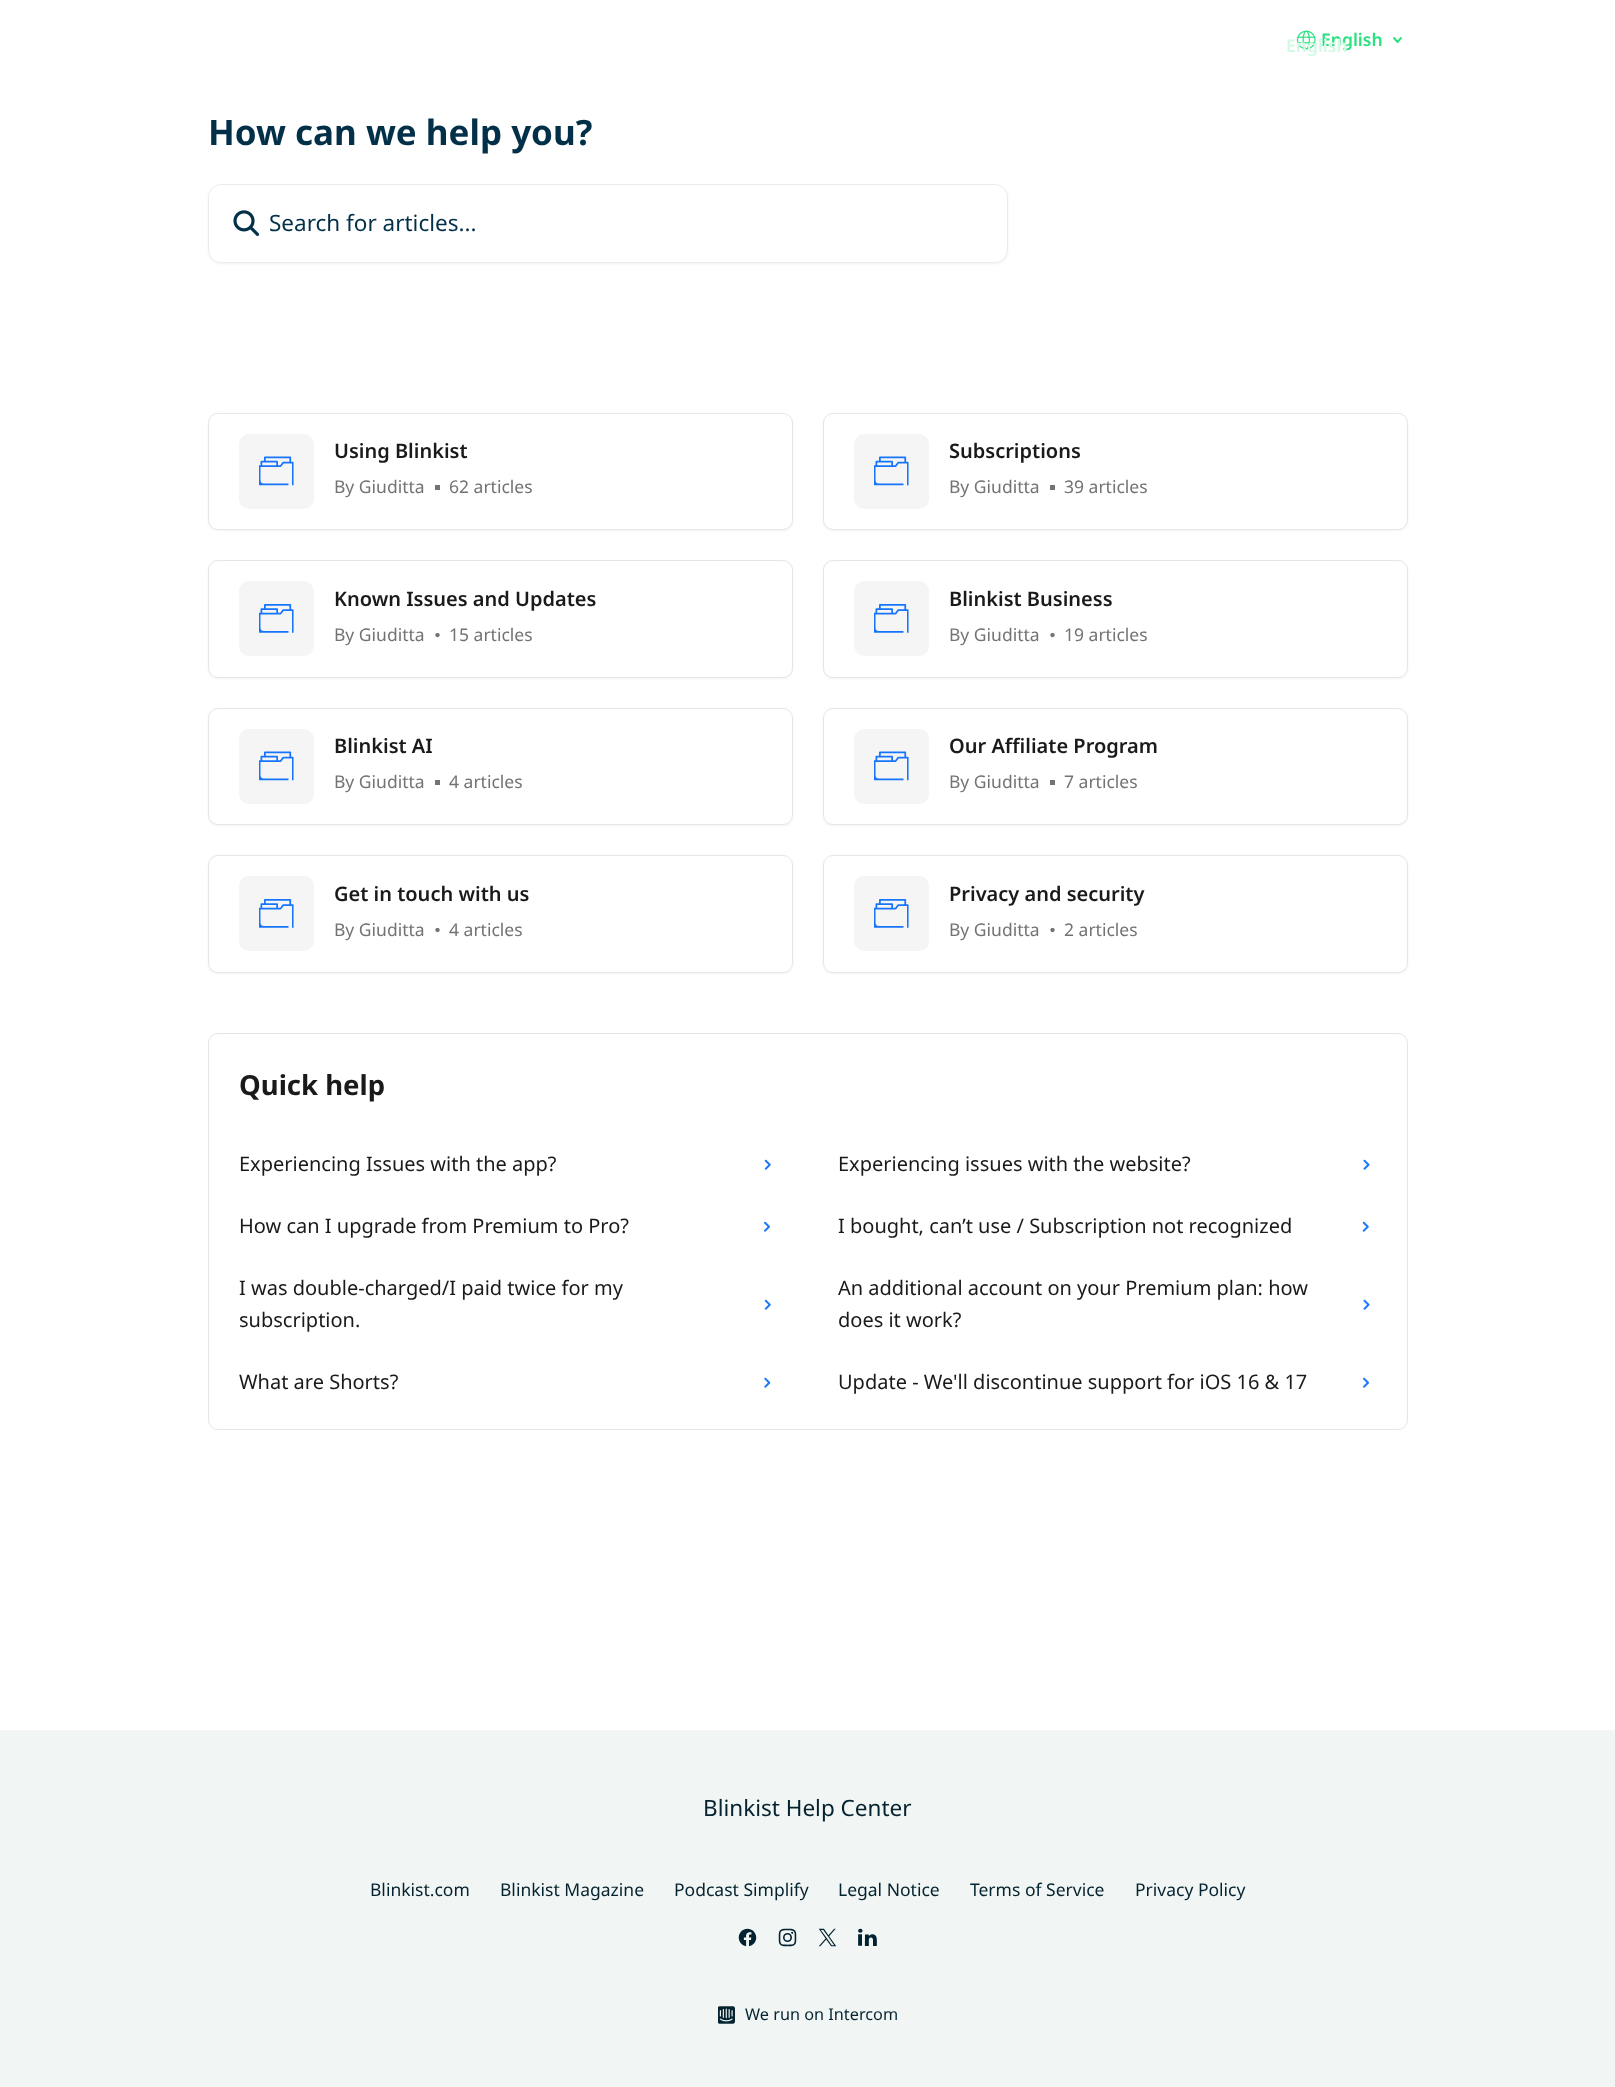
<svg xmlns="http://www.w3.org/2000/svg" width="1615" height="2087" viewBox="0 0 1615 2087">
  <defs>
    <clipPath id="clip1"><path d="M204 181H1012V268H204ZM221 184H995C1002 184 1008 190 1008 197V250C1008 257 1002 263 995 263H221C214 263 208 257 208 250V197C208 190 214 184 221 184Z" clip-rule="evenodd"/></clipPath>
  </defs>
  <rect width="100%" height="100%" fill="rgb(255,255,255)"/>
  <image x="1296" y="30" width="20" height="20" href="pic1.png"/>
  <text x="1321" y="46" font-family="Noto Sans" font-size="17.5" font-weight="600" fill="rgb(44,224,128)">English</text>
  <text x="1286" y="52" font-family="Noto Sans" font-size="17.5" font-weight="600" fill="rgb(212,249,229)">English</text>
  <path d="M1394 38L1397.5 42L1401 38" fill="none" stroke="rgb(44,224,128)" stroke-width="1.9" stroke-linecap="round" stroke-linejoin="round"/>
  <text x="208" y="145" font-family="Noto Sans" font-size="35" font-weight="bold" fill="rgb(3,48,73)">How can we help you?</text>
  <g clip-path="url(#clip1)">
    <rect x="208" y="185" width="800" height="79" rx="13" fill="rgba(0,0,0,0.05)" filter="blur(1px)"/>
  </g>
  <rect x="208.5" y="184.5" width="799" height="78" rx="12.5" fill="none" stroke="rgba(0,0,0,0.08)"/>
  <image x="233" y="210" width="27" height="26" href="pic2.png"/>
  <text x="269" y="231" font-family="Noto Sans" font-size="22.5" fill="rgb(3,48,73)">Search for articles...</text>
  <rect x="208" y="414" width="585" height="117" rx="10" fill="rgba(0,0,0,0.05)" filter="blur(1px)"/>
  <rect x="208.5" y="413.5" width="584" height="116" rx="9.5" fill="rgb(255,255,255)" stroke="rgb(230,230,230)"/>
  <rect x="239" y="434" width="75" height="75" rx="10" fill="rgb(245,245,245)"/>
  <image x="259" y="456" width="35" height="30" href="pic3.png"/>
  <text x="334" y="458" font-family="Noto Sans" font-size="20" font-weight="600" fill="rgb(26,26,26)">Using Blinkist</text>
  <text x="334" y="493" font-family="Noto Sans" font-size="17.5" fill="rgb(115,115,115)">By Giuditta</text>
  <rect x="435" y="485" width="5" height="5" fill="rgb(115,115,115)"/>
  <text x="449" y="493" font-family="Noto Sans" font-size="17.5" fill="rgb(115,115,115)">62 articles</text>
  <rect x="823" y="414" width="585" height="117" rx="10" fill="rgba(0,0,0,0.05)" filter="blur(1px)"/>
  <rect x="823.5" y="413.5" width="584" height="116" rx="9.5" fill="rgb(255,255,255)" stroke="rgb(230,230,230)"/>
  <rect x="854" y="434" width="75" height="75" rx="10" fill="rgb(245,245,245)"/>
  <image x="874" y="456" width="35" height="30" href="pic3.png"/>
  <text x="949" y="458" font-family="Noto Sans" font-size="20" font-weight="600" fill="rgb(26,26,26)">Subscriptions</text>
  <text x="949" y="493" font-family="Noto Sans" font-size="17.5" fill="rgb(115,115,115)">By Giuditta</text>
  <rect x="1050" y="485" width="5" height="5" fill="rgb(115,115,115)"/>
  <text x="1064" y="493" font-family="Noto Sans" font-size="17.5" fill="rgb(115,115,115)">39 articles</text>
  <rect x="208" y="561" width="585" height="118" rx="10" fill="rgba(0,0,0,0.05)" filter="blur(1px)"/>
  <rect x="208.5" y="560.5" width="584" height="117" rx="9.5" fill="rgb(255,255,255)" stroke="rgb(230,230,230)"/>
  <rect x="239" y="581" width="75" height="75" rx="10" fill="rgb(245,245,245)"/>
  <image x="259" y="604" width="35" height="29" href="pic4.png"/>
  <text x="334" y="606" font-family="Noto Sans" font-size="20" font-weight="600" fill="rgb(26,26,26)">Known Issues and Updates</text>
  <text x="334" y="641" font-family="Noto Sans" font-size="17.5" fill="rgb(115,115,115)">By Giuditta</text>
  <image x="435" y="633" width="5" height="5" href="pic5.png"/>
  <text x="449" y="641" font-family="Noto Sans" font-size="17.5" fill="rgb(115,115,115)">15 articles</text>
  <rect x="823" y="561" width="585" height="118" rx="10" fill="rgba(0,0,0,0.05)" filter="blur(1px)"/>
  <rect x="823.5" y="560.5" width="584" height="117" rx="9.5" fill="rgb(255,255,255)" stroke="rgb(230,230,230)"/>
  <rect x="854" y="581" width="75" height="75" rx="10" fill="rgb(245,245,245)"/>
  <image x="874" y="604" width="35" height="29" href="pic4.png"/>
  <text x="949" y="606" font-family="Noto Sans" font-size="20" font-weight="600" fill="rgb(26,26,26)">Blinkist Business</text>
  <text x="949" y="641" font-family="Noto Sans" font-size="17.5" fill="rgb(115,115,115)">By Giuditta</text>
  <image x="1050" y="633" width="5" height="5" href="pic5.png"/>
  <text x="1064" y="641" font-family="Noto Sans" font-size="17.5" fill="rgb(115,115,115)">19 articles</text>
  <rect x="208" y="709" width="585" height="117" rx="10" fill="rgba(0,0,0,0.05)" filter="blur(1px)"/>
  <rect x="208.5" y="708.5" width="584" height="116" rx="9.5" fill="rgb(255,255,255)" stroke="rgb(230,230,230)"/>
  <rect x="239" y="729" width="75" height="75" rx="10" fill="rgb(245,245,245)"/>
  <image x="259" y="751" width="35" height="30" href="pic3.png"/>
  <text x="334" y="753" font-family="Noto Sans" font-size="20" font-weight="600" fill="rgb(26,26,26)">Blinkist AI</text>
  <text x="334" y="788" font-family="Noto Sans" font-size="17.5" fill="rgb(115,115,115)">By Giuditta</text>
  <rect x="435" y="780" width="5" height="5" fill="rgb(115,115,115)"/>
  <text x="449" y="788" font-family="Noto Sans" font-size="17.5" fill="rgb(115,115,115)">4 articles</text>
  <rect x="823" y="709" width="585" height="117" rx="10" fill="rgba(0,0,0,0.05)" filter="blur(1px)"/>
  <rect x="823.5" y="708.5" width="584" height="116" rx="9.5" fill="rgb(255,255,255)" stroke="rgb(230,230,230)"/>
  <rect x="854" y="729" width="75" height="75" rx="10" fill="rgb(245,245,245)"/>
  <image x="874" y="751" width="35" height="30" href="pic3.png"/>
  <text x="949" y="753" font-family="Noto Sans" font-size="20" font-weight="600" fill="rgb(26,26,26)">Our Affiliate Program</text>
  <text x="949" y="788" font-family="Noto Sans" font-size="17.5" fill="rgb(115,115,115)">By Giuditta</text>
  <rect x="1050" y="780" width="5" height="5" fill="rgb(115,115,115)"/>
  <text x="1064" y="788" font-family="Noto Sans" font-size="17.5" fill="rgb(115,115,115)">7 articles</text>
  <rect x="208" y="856" width="585" height="118" rx="10" fill="rgba(0,0,0,0.05)" filter="blur(1px)"/>
  <rect x="208.5" y="855.5" width="584" height="117" rx="9.5" fill="rgb(255,255,255)" stroke="rgb(230,230,230)"/>
  <rect x="239" y="876" width="75" height="75" rx="10" fill="rgb(245,245,245)"/>
  <image x="259" y="899" width="35" height="29" href="pic4.png"/>
  <text x="334" y="901" font-family="Noto Sans" font-size="20" font-weight="600" fill="rgb(26,26,26)">Get in touch with us</text>
  <text x="334" y="936" font-family="Noto Sans" font-size="17.5" fill="rgb(115,115,115)">By Giuditta</text>
  <image x="435" y="928" width="5" height="5" href="pic5.png"/>
  <text x="449" y="936" font-family="Noto Sans" font-size="17.5" fill="rgb(115,115,115)">4 articles</text>
  <rect x="823" y="856" width="585" height="118" rx="10" fill="rgba(0,0,0,0.05)" filter="blur(1px)"/>
  <rect x="823.5" y="855.5" width="584" height="117" rx="9.5" fill="rgb(255,255,255)" stroke="rgb(230,230,230)"/>
  <rect x="854" y="876" width="75" height="75" rx="10" fill="rgb(245,245,245)"/>
  <image x="874" y="899" width="35" height="29" href="pic4.png"/>
  <text x="949" y="901" font-family="Noto Sans" font-size="20" font-weight="600" fill="rgb(26,26,26)">Privacy and security</text>
  <text x="949" y="936" font-family="Noto Sans" font-size="17.5" fill="rgb(115,115,115)">By Giuditta</text>
  <image x="1050" y="928" width="5" height="5" href="pic5.png"/>
  <text x="1064" y="936" font-family="Noto Sans" font-size="17.5" fill="rgb(115,115,115)">2 articles</text>
  <rect x="208.5" y="1033.5" width="1199" height="396" rx="9.5" fill="none" stroke="rgb(230,230,230)"/>
  <text x="239" y="1095" font-family="Noto Sans" font-size="27.5" font-weight="bold" fill="rgb(26,26,26)">Quick help</text>
  <text x="239" y="1171" font-family="Noto Sans" font-size="20" fill="rgb(26,26,26)">Experiencing Issues with the app?</text>
  <image x="764" y="1159" width="7" height="11" href="pic6.png"/>
  <text x="838" y="1171" font-family="Noto Sans" font-size="20" fill="rgb(26,26,26)">Experiencing issues with the website?</text>
  <image x="1363" y="1159" width="7" height="11" href="pic7.png"/>
  <text x="239" y="1233" font-family="Noto Sans" font-size="20" fill="rgb(26,26,26)">How can I upgrade from Premium to Pro?</text>
  <image x="764" y="1221" width="6" height="11" href="pic8.png"/>
  <text x="838" y="1233" font-family="Noto Sans" font-size="20" fill="rgb(26,26,26)">I bought, can’t use / Subscription not recognized</text>
  <image x="1362" y="1221" width="7" height="11" href="pic9.png"/>
  <g font-family="Noto Sans" font-size="20" fill="rgb(26,26,26)">
    <text>
      <tspan x="239" y="1295">I was double-charged/I paid twice for my</tspan>
      <tspan x="239" y="1327">subscription.</tspan>
    </text>
  </g>
  <image x="764" y="1299" width="7" height="11" href="pic10.png"/>
  <g font-family="Noto Sans" font-size="20" fill="rgb(26,26,26)">
    <text>
      <tspan x="838" y="1295">An additional account on your Premium plan: how</tspan>
      <tspan x="838" y="1327">does it work?</tspan>
    </text>
  </g>
  <image x="1363" y="1299" width="7" height="11" href="pic11.png"/>
  <text x="239" y="1389" font-family="Noto Sans" font-size="20" fill="rgb(26,26,26)">What are Shorts?</text>
  <image x="764" y="1377" width="7" height="11" href="pic12.png"/>
  <text x="838" y="1389" font-family="Noto Sans" font-size="20" fill="rgb(26,26,26)">Update - We'll discontinue support for iOS 16 &amp; 17</text>
  <image x="1363" y="1377" width="6" height="11" href="pic13.png"/>
  <rect x="0" y="1730" width="1615" height="357" fill="rgb(241,246,244)"/>
  <text x="703" y="1816" font-family="Noto Sans" font-size="22.5" fill="rgb(4,34,47)">Blinkist Help Center</text>
  <g font-family="Noto Sans" font-size="17.5" fill="rgb(4,34,47)">
    <text x="370" y="1896">Blinkist.com</text>
    <text x="500" y="1896">Blinkist Magazine</text>
    <text x="674" y="1896">Podcast Simplify</text>
    <text x="838" y="1896">Legal Notice</text>
    <text x="970" y="1896">Terms of Service</text>
    <text x="1135" y="1896">Privacy Policy</text>
  </g>
  <image x="738" y="1928" width="19" height="19" href="pic14.png"/>
  <image x="778" y="1928" width="19" height="19" href="pic15.png"/>
  <image x="818" y="1928" width="19" height="19" href="pic16.png"/>
  <image x="858" y="1928" width="19" height="18" href="pic17.png"/>
  <image x="718" y="2006" width="17" height="18" href="pic18.png"/>
  <text x="745" y="2020" font-family="Noto Sans" font-size="16.25" fill="rgb(4,34,47)">We run on Intercom</text>
</svg>
